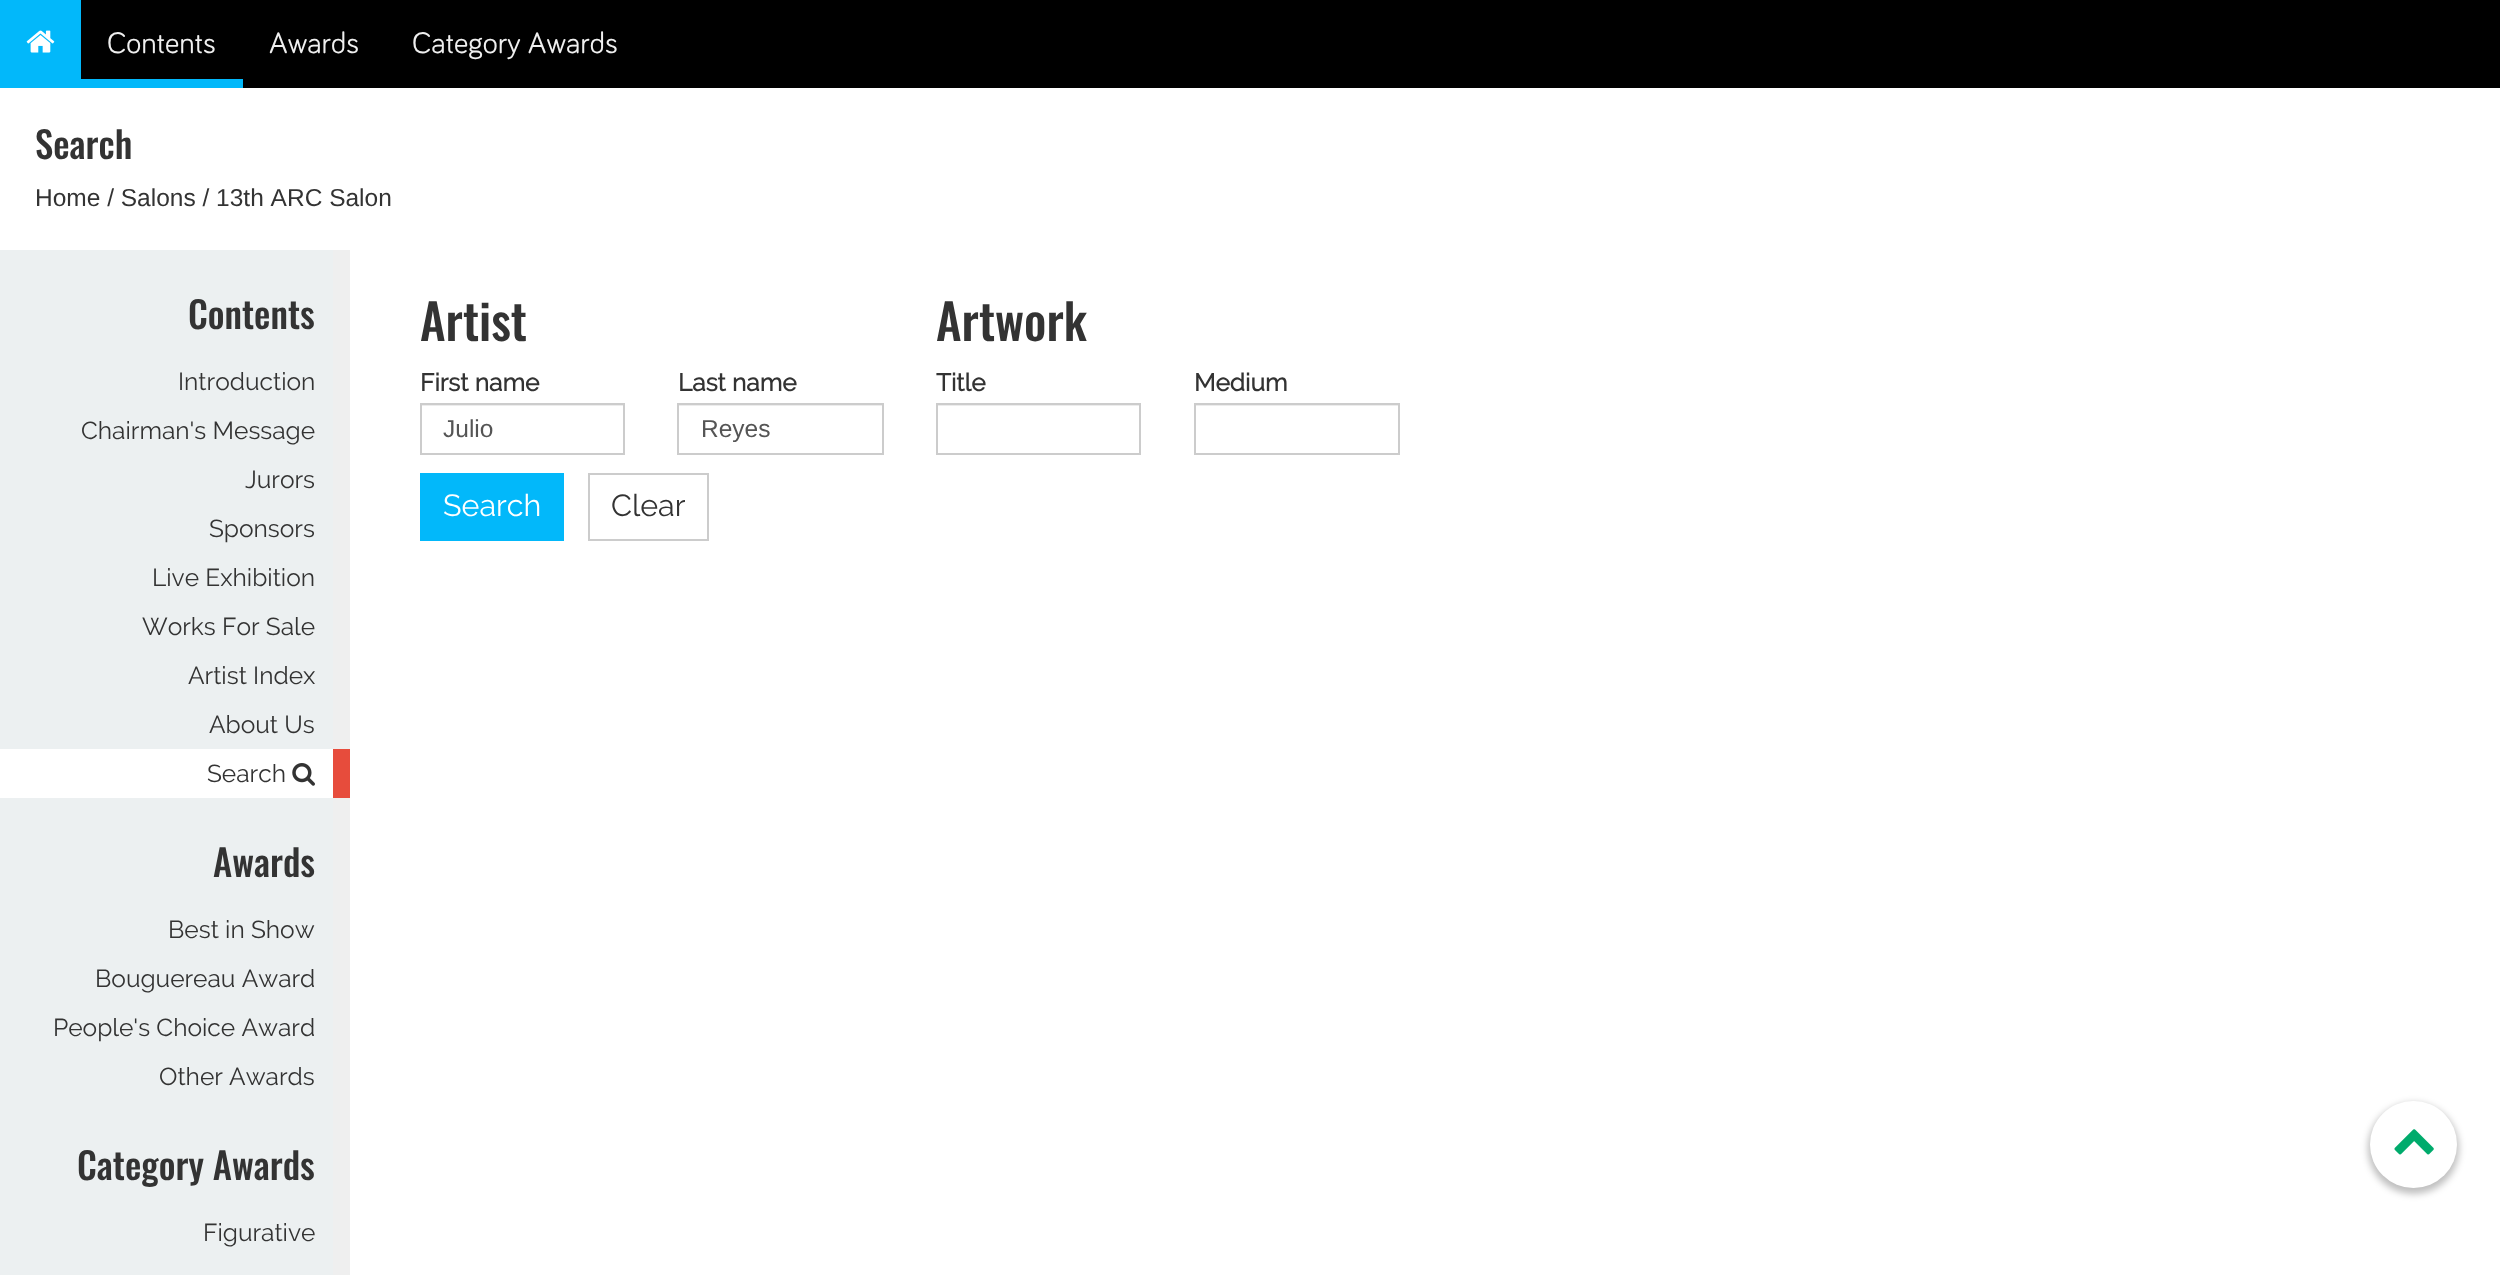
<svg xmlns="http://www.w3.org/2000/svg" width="2500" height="1275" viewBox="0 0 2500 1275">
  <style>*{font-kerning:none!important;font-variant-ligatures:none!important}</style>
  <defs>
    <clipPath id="clip1"><rect x="81" y="0" width="162" height="88"/></clipPath>
  </defs>
  <rect width="100%" height="100%" fill="rgb(255,255,255)"/>
  <rect x="81" y="0" width="2419" height="88" fill="rgb(0,0,0)"/>
  <rect x="0" y="0" width="81" height="88" fill="rgb(2,184,250)"/>
  <image x="26" y="30" width="29" height="23" href="pic1.png"/>
  <g clip-path="url(#clip1)">
    <path d="M-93-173H416V261H-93ZM80-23H243C247-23 250-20 250-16V72C250 76 247 79 243 79H80C77 79 74 76 74 72V-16C74-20 77-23 80-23Z" fill="rgb(2,184,250)" fill-rule="evenodd"/>
  </g>
  <g font-family="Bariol" font-size="30.5" fill="rgb(239,239,239)">
    <text x="107" y="53">Contents</text>
    <text x="269" y="53">Awards</text>
    <text x="412" y="53">Category Awards</text>
  </g>
  <text x="35" y="159" font-family="Oswald" font-size="36.75" font-weight="500" fill="rgb(51,51,51)">Search</text>
  <text x="35" y="206" font-family="Liberation Sans" font-size="24.5" fill="rgb(51,51,51)">Home / Salons / 13th ARC Salon</text>
  <rect x="0" y="250" width="333" height="1025" fill="rgb(236,240,241)"/>
  <rect x="333" y="250" width="17" height="499" fill="rgb(239,239,239)"/>
  <text x="188" y="329" font-family="Oswald" font-size="36.75" font-weight="500" fill="rgb(51,51,51)">Contents</text>
  <g font-family="Raleway" font-size="24.5" fill="rgb(51,51,51)">
    <text x="178" y="390">Introduction</text>
    <text x="81" y="439">Chairman's Message</text>
    <text x="245" y="488">Jurors</text>
    <text x="209" y="537">Sponsors</text>
    <text x="152" y="586">Live Exhibition</text>
    <text x="142" y="635">Works For Sale</text>
    <text x="188" y="684">Artist Index</text>
    <text x="209" y="733">About Us</text>
  </g>
  <rect x="0" y="749" width="333" height="49" fill="rgb(255,255,255)"/>
  <rect x="333" y="749" width="17" height="49" fill="rgb(231,76,60)"/>
  <text x="207" y="782" font-family="Raleway" font-size="24.5" fill="rgb(51,51,51)">Search</text>
  <image x="292" y="763" width="23" height="23" href="pic2.png"/>
  <rect x="333" y="798" width="17" height="477" fill="rgb(239,239,239)"/>
  <text x="213" y="877" font-family="Oswald" font-size="36.75" font-weight="500" fill="rgb(51,51,51)">Awards</text>
  <g font-family="Raleway" font-size="24.5" fill="rgb(51,51,51)">
    <text x="168" y="938">Best in Show</text>
    <text x="95" y="987">Bouguereau Award</text>
    <text x="53" y="1036">People's Choice Award</text>
    <text x="159" y="1085">Other Awards</text>
  </g>
  <text x="77" y="1180" font-family="Oswald" font-size="36.75" font-weight="500" fill="rgb(51,51,51)">Category Awards</text>
  <text x="203" y="1241" font-family="Raleway" font-size="24.5" fill="rgb(51,51,51)">Figurative</text>
  <text x="420" y="341" font-family="Oswald" font-size="49" font-weight="500" fill="rgb(51,51,51)">Artist</text>
  <text x="420" y="391" font-family="Raleway" font-size="24.5" font-weight="bold" fill="rgb(51,51,51)">First name</text>
  <rect x="422" y="405" width="201" height="1" fill="rgb(236,236,236)"/>
  <rect x="421" y="404" width="203" height="50" fill="none" stroke="rgb(204,204,204)" stroke-width="2"/>
  <text x="443" y="437" font-family="Liberation Sans" font-size="24.5" fill="rgb(85,85,85)">Julio</text>
  <text x="678" y="391" font-family="Raleway" font-size="24.5" font-weight="bold" fill="rgb(51,51,51)">Last name</text>
  <rect x="679" y="405" width="203" height="1" fill="rgb(236,236,236)"/>
  <rect x="678" y="404" width="205" height="50" fill="none" stroke="rgb(204,204,204)" stroke-width="2"/>
  <text x="701" y="437" font-family="Liberation Sans" font-size="24.5" fill="rgb(85,85,85)">Reyes</text>
  <text x="936" y="341" font-family="Oswald" font-size="49" font-weight="500" fill="rgb(51,51,51)">Artwork</text>
  <text x="936" y="391" font-family="Raleway" font-size="24.5" font-weight="bold" fill="rgb(51,51,51)">Title</text>
  <rect x="938" y="405" width="201" height="1" fill="rgb(236,236,236)"/>
  <rect x="937" y="404" width="203" height="50" fill="none" stroke="rgb(204,204,204)" stroke-width="2"/>
  <text x="1194" y="391" font-family="Raleway" font-size="24.5" font-weight="bold" fill="rgb(51,51,51)">Medium</text>
  <rect x="1195" y="405" width="203" height="1" fill="rgb(236,236,236)"/>
  <rect x="1195" y="404" width="204" height="50" fill="none" stroke="rgb(204,204,204)" stroke-width="2"/>
  <rect x="420" y="473" width="144" height="68" fill="rgb(2,184,250)"/>
  <text x="443" y="516" font-family="Raleway" font-size="30.5" fill="rgb(255,255,255)">Search</text>
  <rect x="589" y="474" width="119" height="66" fill="none" stroke="rgb(204,204,204)" stroke-width="2"/>
  <text x="611" y="516" font-family="Raleway" font-size="30.5" fill="rgb(51,51,51)">Clear</text>
  <rect x="2368" y="1103" width="91" height="91" rx="45.5" fill="rgba(0,0,0,0.25)" filter="blur(3.5px)"/>
  <circle cx="2413.5" cy="1144.5" r="43.5" fill="rgb(255,255,255)"/>
  <image x="2394" y="1129" width="40" height="26" href="pic3.png"/>
</svg>
